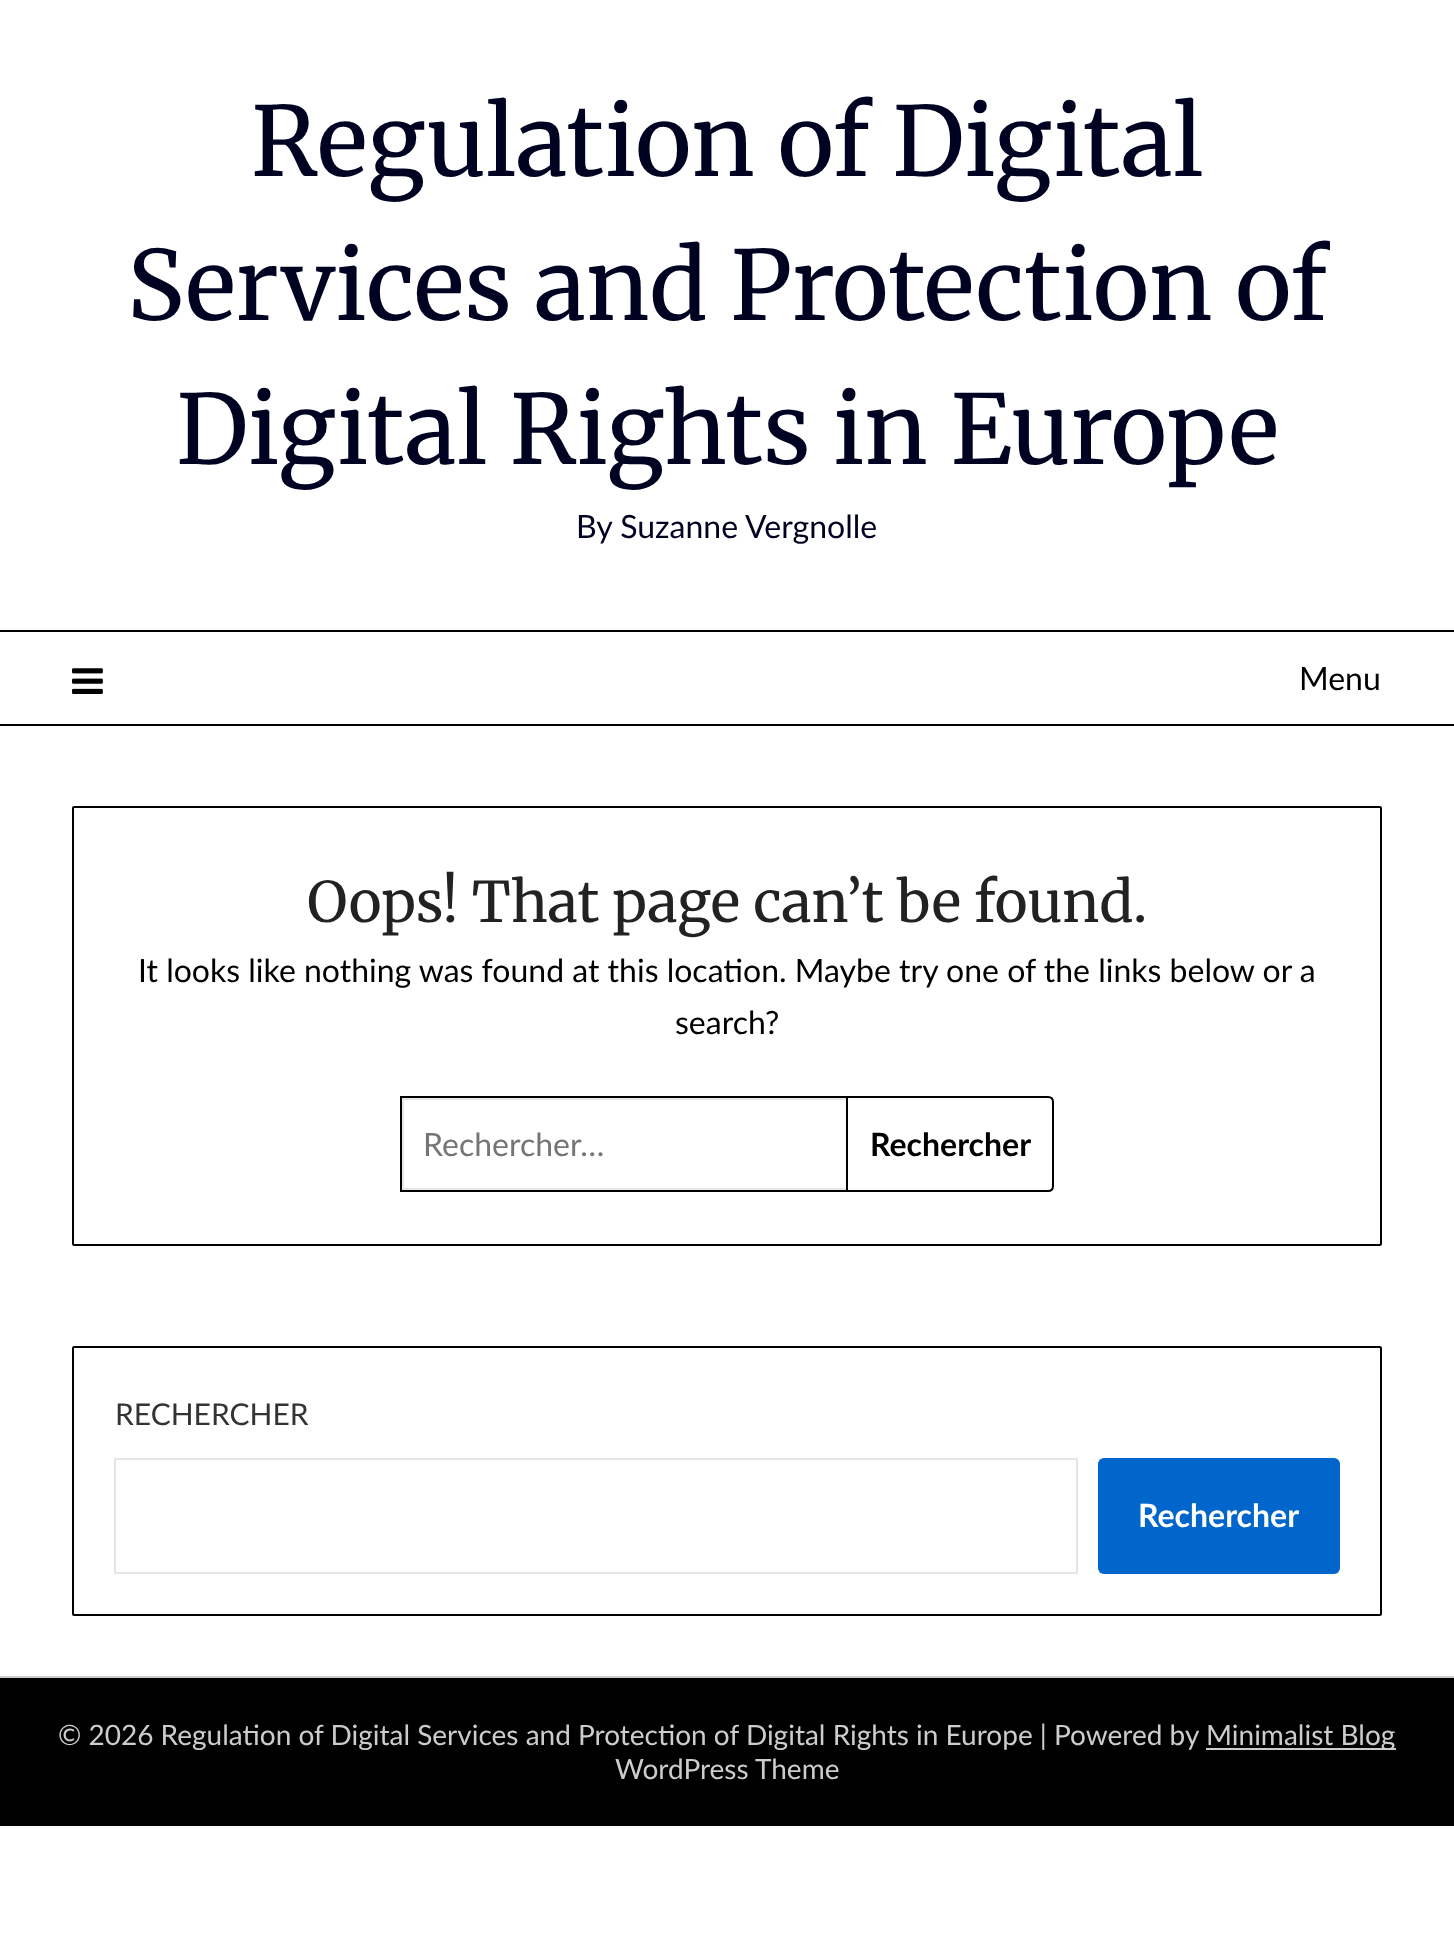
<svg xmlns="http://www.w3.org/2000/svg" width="1454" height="1955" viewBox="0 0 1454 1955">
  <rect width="100%" height="100%" fill="rgb(255,255,255)"/>
  <g font-family="Merriweather" font-size="96" fill="rgb(0,2,34)">
    <text x="251" y="176">Regulation of Digital</text>
    <text x="127" y="320">Services and Protection of</text>
    <text x="176" y="464">Digital Rights in Europe</text>
  </g>
  <text x="576" y="538" font-family="Lato" font-size="32" fill="rgb(0,2,34)">By Suzanne Vergnolle</text>
  <rect x="0" y="630" width="1454" height="2" fill="rgb(0,0,0)"/>
  <rect x="0" y="724" width="1454" height="2" fill="rgb(0,0,0)"/>
  <image x="72" y="668" width="31" height="26" href="pic1.png"/>
  <text x="1299" y="690" font-family="Lato" font-size="32" fill="rgb(0,0,0)">Menu</text>
  <rect x="73" y="807" width="1308" height="438" rx="1" fill="none" stroke="rgb(0,0,0)" stroke-width="2"/>
  <text x="307" y="922" font-family="Merriweather" font-size="56" fill="rgb(34,34,34)">Oops! That page can’t be found.</text>
  <g font-family="Lato" font-size="32" fill="rgb(0,0,0)">
    <text x="138" y="982">It looks like nothing was found at this location. Maybe try one of the links below or a</text>
    <text x="675" y="1034">search?</text>
  </g>
  <rect x="400" y="1096" width="448" height="2" fill="rgb(0,0,0)"/>
  <rect x="400" y="1190" width="448" height="2" fill="rgb(0,0,0)"/>
  <rect x="400" y="1096" width="2" height="96" fill="rgb(0,0,0)"/>
  <rect x="403" y="1099" width="444" height="90" fill="none" stroke="rgb(229,230,233)" stroke-width="2"/>
  <text x="423" y="1156" font-family="Lato" font-size="32" fill="rgb(117,117,117)">Rechercher…</text>
  <path d="M847 1097H1048C1051 1097 1053 1099 1053 1102V1186C1053 1189 1051 1191 1048 1191H847Z" fill="none" stroke="rgb(0,0,0)" stroke-width="2"/>
  <text x="870" y="1156" font-family="Lato" font-size="32" font-weight="bold" fill="rgb(0,0,0)">Rechercher</text>
  <rect x="73" y="1347" width="1308" height="268" rx="1" fill="none" stroke="rgb(0,0,0)" stroke-width="2"/>
  <text x="115" y="1425" font-family="Lato" font-size="30" fill="rgb(51,51,51)">RECHERCHER</text>
  <rect x="115" y="1459" width="962" height="114" fill="none" stroke="rgb(229,230,233)" stroke-width="2"/>
  <rect x="1098" y="1458" width="242" height="116" rx="6" fill="rgb(0,102,204)"/>
  <text x="1138" y="1527" font-family="Lato" font-size="32" font-weight="bold" fill="rgb(255,255,255)">Rechercher</text>
  <rect x="0" y="1678" width="1454" height="148" fill="rgb(0,0,0)"/>
  <rect x="0" y="1676" width="1454" height="2" fill="rgb(204,204,204)"/>
  <text x="58" y="1745" font-family="Lato" font-size="28" fill="rgb(204,204,204)">© 2026 Regulation of Digital Services and Protection of Digital Rights in Europe | Powered by</text>
  <rect x="1206" y="1748" width="190" height="2" fill="rgb(204,204,204)"/>
  <g font-family="Lato" font-size="28" fill="rgb(204,204,204)">
    <text x="1206" y="1745">Minimalist Blog</text>
    <text x="615" y="1779">WordPress Theme</text>
  </g>
</svg>
